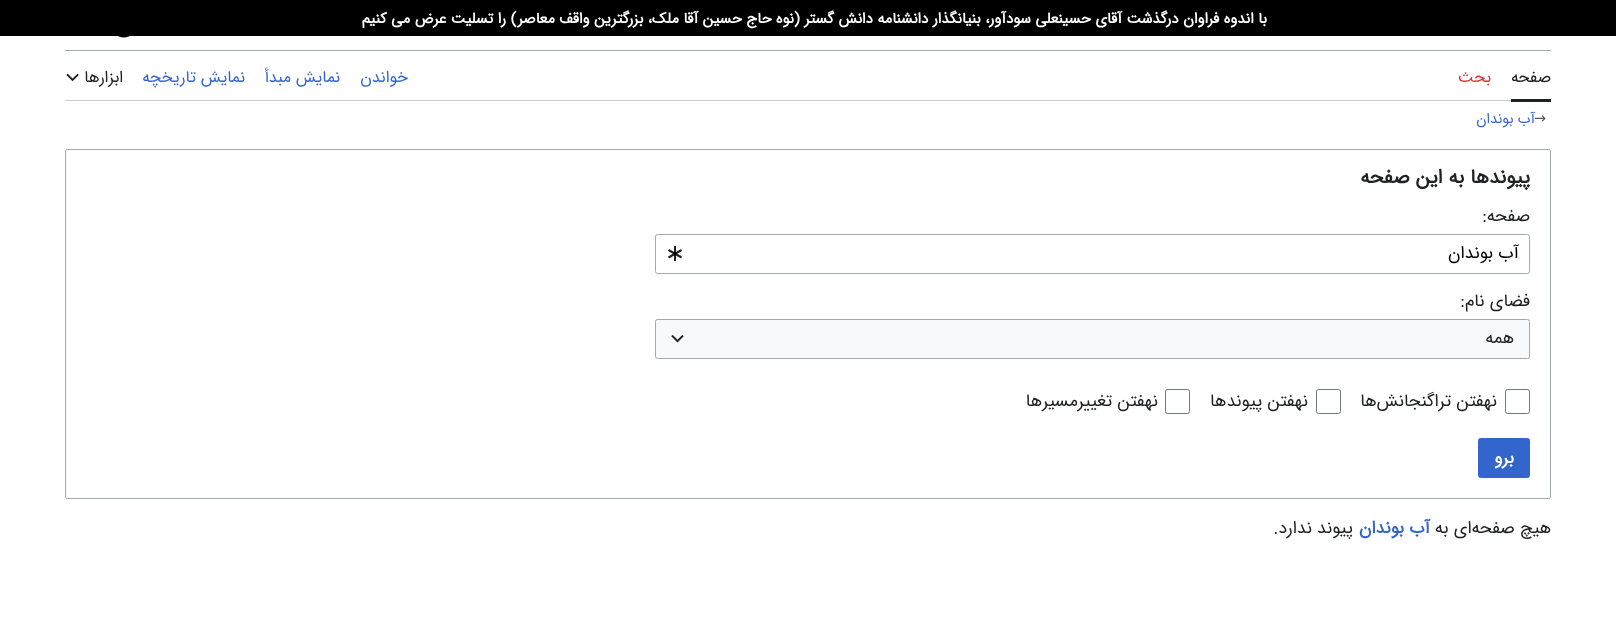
<svg xmlns="http://www.w3.org/2000/svg" width="1616" height="627" viewBox="0 0 1616 627">
  <rect width="100%" height="100%" fill="rgb(255,255,255)"/>
  <rect x="0" y="0" width="1616" height="36" fill="rgb(0,0,0)"/>
  <text x="1267" y="23" font-family="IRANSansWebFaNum" font-size="15" font-weight="bold" direction="rtl" fill="rgb(255,255,255)">با اندوه فراوان درگذشت آقای حسینعلی سودآور، بنیانگذار دانشنامه دانش گستر (نوه حاج حسین آقا ملک، بزرگترین واقف معاصر) را تسلیت عرض می کنیم</text>
  <rect x="65" y="50" width="1486" height="1" fill="rgb(162,169,177)"/>
  <image x="118" y="36" width="12" height="2" href="pic1.png"/>
  <rect x="65" y="100" width="1446" height="1" fill="rgb(200,204,209)"/>
  <rect x="1511" y="99" width="40" height="3" fill="rgb(32,33,34)"/>
  <text x="1551" y="82" font-family="IRANSansWebFaNum" font-size="16.25" direction="rtl" fill="rgb(32,33,34)">صفحه</text>
  <text x="1491" y="82" font-family="IRANSansWebFaNum" font-size="16.25" direction="rtl" fill="rgb(215,51,51)">بحث</text>
  <g font-family="IRANSansWebFaNum" font-size="16.25" direction="rtl" fill="rgb(51,102,204)">
    <text x="408" y="82">خواندن</text>
    <text x="340" y="82">نمایش مبدأ</text>
    <text x="245" y="82">نمایش تاریخچه</text>
  </g>
  <text x="123" y="82" font-family="IRANSansWebFaNum" font-size="16.25" direction="rtl" fill="rgb(32,33,34)">ابزارها</text>
  <image x="66" y="73" width="13" height="9" href="pic2.png"/>
  <text x="1534" y="123" font-family="DejaVu Sans" font-size="14.5" fill="rgb(84,89,93)">→</text>
  <text x="1535" y="123" font-family="IRANSansWebFaNum" font-size="14.5" direction="rtl" fill="rgb(51,102,204)">آب بوندان</text>
  <rect x="65.5" y="149.5" width="1485" height="349" rx="2" fill="none" stroke="rgb(162,169,177)"/>
  <text x="1530" y="183" font-family="IRANSansWebFaNum" font-size="20" font-weight="bold" direction="rtl" fill="rgb(32,33,34)">پیوندها به این صفحه</text>
  <text x="1530" y="221" font-family="IRANSansWebFaNum" font-size="17.5" direction="rtl" fill="rgb(32,33,34)">صفحه:</text>
  <rect x="655.5" y="234.5" width="874" height="39" rx="2" fill="none" stroke="rgb(162,169,177)"/>
  <text x="1519" y="258" font-family="IRANSansWebFaNum" font-size="17.5" direction="rtl" fill="rgb(0,0,0)">آب بوندان</text>
  <image x="668" y="246" width="14" height="15" href="pic3.png"/>
  <text x="1530" y="306" font-family="IRANSansWebFaNum" font-size="17.5" direction="rtl" fill="rgb(32,33,34)">فضای نام:</text>
  <rect x="655" y="319" width="875" height="40" fill="rgb(248,249,250)"/>
  <rect x="655.5" y="319.5" width="874" height="39" rx="2" fill="none" stroke="rgb(162,169,177)"/>
  <text x="1514" y="343" font-family="IRANSansWebFaNum" font-size="17.5" direction="rtl" fill="rgb(32,33,34)">همه</text>
  <image x="671" y="335" width="13" height="8" href="pic4.png"/>
  <rect x="1505.5" y="389.5" width="24" height="24" rx="2" fill="none" stroke="rgb(114,119,125)"/>
  <text x="1497" y="406" font-family="IRANSansWebFaNum" font-size="17.5" direction="rtl" fill="rgb(32,33,34)">نهفتن تراگنجانش‌ها</text>
  <rect x="1316.5" y="389.5" width="24" height="24" rx="2" fill="none" stroke="rgb(114,119,125)"/>
  <text x="1308" y="406" font-family="IRANSansWebFaNum" font-size="17.5" direction="rtl" fill="rgb(32,33,34)">نهفتن پیوندها</text>
  <rect x="1165.5" y="389.5" width="24" height="24" rx="2" fill="none" stroke="rgb(114,119,125)"/>
  <text x="1158" y="406" font-family="IRANSansWebFaNum" font-size="17.5" direction="rtl" fill="rgb(32,33,34)">نهفتن تغییرمسیرها</text>
  <rect x="1478.5" y="438.5" width="51" height="39" rx="2" fill="rgb(51,102,204)" stroke="rgb(51,102,204)"/>
  <text x="1514" y="463" font-family="IRANSansWebFaNum" font-size="17.5" font-weight="bold" direction="rtl" fill="rgb(255,255,255)">برو</text>
  <text x="1551" y="533" font-family="IRANSansWebFaNum" font-size="17.5" direction="rtl" fill="rgb(32,33,34)">هیچ صفحه‌ای به</text>
  <text x="1430" y="533" font-family="IRANSansWebFaNum" font-size="17.5" font-weight="bold" direction="rtl" fill="rgb(51,102,204)">آب بوندان</text>
  <text x="1353" y="533" font-family="IRANSansWebFaNum" font-size="17.5" direction="rtl" fill="rgb(32,33,34)">پیوند ندارد.</text>
</svg>
